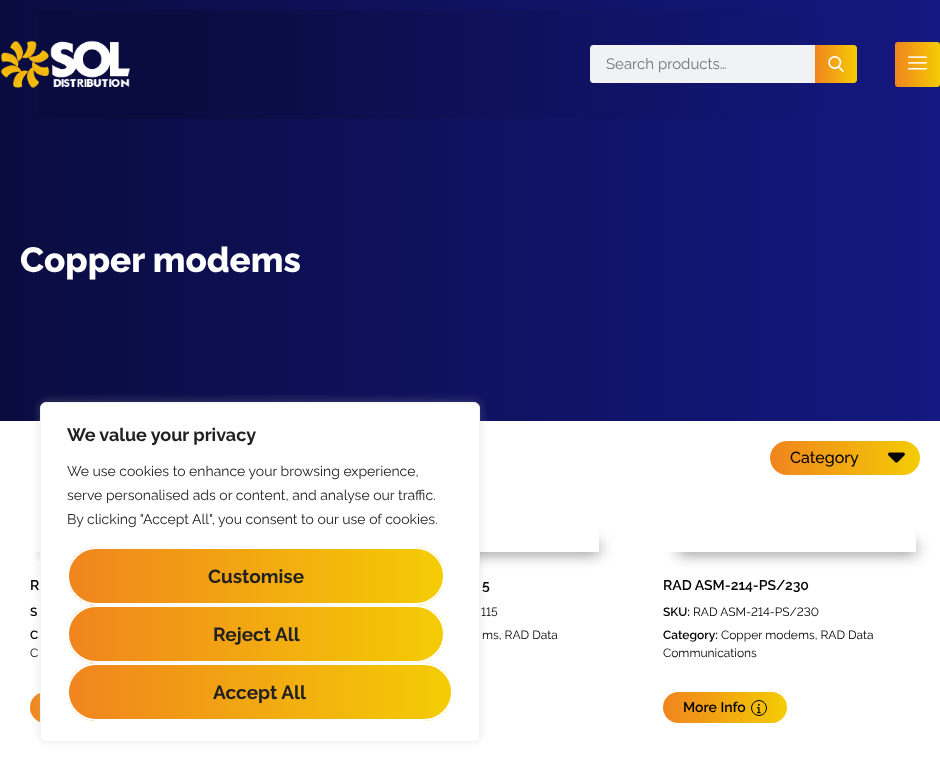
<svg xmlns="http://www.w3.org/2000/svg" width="940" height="782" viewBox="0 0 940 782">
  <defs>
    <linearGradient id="g1" gradientUnits="userSpaceOnUse" x1="0" y1="194" x2="940" y2="194"><stop offset="0" stop-color="rgb(10,12,64)"/><stop offset="1" stop-color="rgb(20,24,128)"/></linearGradient>
    <linearGradient id="g2" gradientUnits="userSpaceOnUse" x1="940" y1="64" x2="0" y2="65"><stop offset="0" stop-color="rgb(20,24,128)"/><stop offset="0.8" stop-color="rgb(10,12,64)"/></linearGradient>
    <linearGradient id="g3" gradientUnits="userSpaceOnUse" x1="815" y1="64" x2="857" y2="64"><stop offset="0" stop-color="rgb(240,133,30)"/><stop offset="1" stop-color="rgb(244,204,4)"/></linearGradient>
    <linearGradient id="g4" gradientUnits="userSpaceOnUse" x1="895" y1="65" x2="940" y2="65"><stop offset="0" stop-color="rgb(240,133,30)"/><stop offset="1" stop-color="rgb(244,204,4)"/></linearGradient>
    <linearGradient id="g5" gradientUnits="userSpaceOnUse" x1="30" y1="708" x2="154" y2="708"><stop offset="0" stop-color="rgb(240,133,30)"/><stop offset="1" stop-color="rgb(244,204,4)"/></linearGradient>
    <clipPath id="clip1"><rect x="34" y="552" width="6" height="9"/></clipPath>
    <clipPath id="clip2"><path d="M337 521H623V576H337ZM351 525H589C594.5 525 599 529.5 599 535V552H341V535C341 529.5 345.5 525 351 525Z" clip-rule="evenodd"/></clipPath>
    <clipPath id="clip3"><rect x="67" y="547" width="378" height="58" rx="29"/></clipPath>
    <linearGradient id="g6" gradientUnits="userSpaceOnUse" x1="69" y1="576" x2="443" y2="576"><stop offset="0" stop-color="rgb(240,133,30)"/><stop offset="1" stop-color="rgb(244,204,4)"/></linearGradient>
    <clipPath id="clip4"><rect x="67" y="605" width="378" height="58" rx="29"/></clipPath>
    <linearGradient id="g7" gradientUnits="userSpaceOnUse" x1="69" y1="634" x2="443" y2="634"><stop offset="0" stop-color="rgb(240,133,30)"/><stop offset="1" stop-color="rgb(244,204,4)"/></linearGradient>
    <clipPath id="clip5"><rect x="67" y="663" width="386" height="58" rx="29"/></clipPath>
    <linearGradient id="g8" gradientUnits="userSpaceOnUse" x1="69" y1="692" x2="451" y2="692"><stop offset="0" stop-color="rgb(240,133,30)"/><stop offset="1" stop-color="rgb(244,204,4)"/></linearGradient>
    <linearGradient id="g9" gradientUnits="userSpaceOnUse" x1="770" y1="458" x2="920" y2="458"><stop offset="0" stop-color="rgb(240,133,30)"/><stop offset="1" stop-color="rgb(244,204,4)"/></linearGradient>
    <clipPath id="clip6"><path d="M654 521H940V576H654ZM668 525H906C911.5 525 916 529.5 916 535V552H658V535C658 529.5 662.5 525 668 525Z" clip-rule="evenodd"/></clipPath>
    <linearGradient id="g10" gradientUnits="userSpaceOnUse" x1="663" y1="708" x2="787" y2="708"><stop offset="0" stop-color="rgb(240,133,30)"/><stop offset="1" stop-color="rgb(244,204,4)"/></linearGradient>
    <clipPath id="clip7"><rect x="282" y="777" width="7" height="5"/></clipPath>
  </defs>
  <rect width="100%" height="100%" fill="rgb(255,255,255)"/>
  <rect x="0" y="0" width="940" height="421" fill="url(#g1)"/>
  <rect x="37" y="10" width="780" height="109" fill="url(#g2)"/>
  <image x="0" y="40" width="130" height="48" href="pic1.png"/>
  <path d="M593 45H815V83H593C591.5 83 590 81.5 590 80V48C590 46.5 591.5 45 593 45Z" fill="rgb(241,242,243)"/>
  <text x="606" y="69" font-family="Raleway" font-size="15" fill="rgb(117,117,117)">Search products…</text>
  <path d="M815 45H854C855.5 45 857 46.5 857 48V80C857 81.5 855.5 83 854 83H815Z" fill="url(#g3)"/>
  <image x="828" y="56" width="16" height="16" href="pic2.png"/>
  <rect x="895" y="42" width="45" height="45" rx="3" fill="url(#g4)"/>
  <image x="908" y="56" width="19" height="14" href="pic3.png"/>
  <text x="20" y="272" font-family="Raleway" font-size="35" font-weight="800" fill="rgb(255,255,255)">Copper modems</text>
  <rect x="30" y="692" width="124" height="31" rx="15.5" fill="url(#g5)"/>
  <rect x="40" y="401" width="440" height="340" rx="6" fill="rgba(172,171,171,0.3)" filter="blur(5px)"/>
  <g clip-path="url(#clip1)">
    <rect x="44" y="545" width="238" height="7" fill="rgba(0,0,0,0.75)" filter="blur(7.5px)"/>
  </g>
  <g clip-path="url(#clip2)">
    <rect x="361" y="545" width="238" height="7" fill="rgba(0,0,0,0.75)" filter="blur(7.5px)"/>
  </g>
  <rect x="40.5" y="402.5" width="439" height="339" rx="5.5" fill="rgb(255,255,255)" stroke="rgb(244,244,244)"/>
  <text x="67" y="441" font-family="Raleway" font-size="18" font-weight="bold" fill="rgb(33,33,33)">We value your privacy</text>
  <g font-family="Raleway" font-size="14" fill="rgb(33,33,33)">
    <text>
      <tspan x="67" y="476">We use cookies to enhance your browsing experience,</tspan>
      <tspan x="67" y="500">serve personalised ads or content, and analyse our traffic.</tspan>
      <tspan x="67" y="524">By clicking "Accept All", you consent to our use of cookies.</tspan>
    </text>
  </g>
  <g clip-path="url(#clip3)">
    <rect x="69" y="547" width="374" height="58" fill="url(#g6)"/>
  </g>
  <rect x="68" y="548" width="376" height="56" rx="28" fill="none" stroke="rgb(255,255,255)" stroke-width="2"/>
  <text x="208" y="583" font-family="Raleway" font-size="19" font-weight="bold" fill="rgb(33,33,33)">Customise</text>
  <g clip-path="url(#clip4)">
    <rect x="69" y="605" width="374" height="58" fill="url(#g7)"/>
  </g>
  <rect x="68" y="606" width="376" height="56" rx="28" fill="none" stroke="rgb(255,255,255)" stroke-width="2"/>
  <text x="213" y="641" font-family="Raleway" font-size="19" font-weight="bold" fill="rgb(33,33,33)">Reject All</text>
  <g clip-path="url(#clip5)">
    <rect x="69" y="663" width="382" height="58" fill="url(#g8)"/>
  </g>
  <rect x="68" y="664" width="384" height="56" rx="28" fill="none" stroke="rgb(255,255,255)" stroke-width="2"/>
  <text x="213" y="699" font-family="Raleway" font-size="19" font-weight="bold" fill="rgb(33,33,33)">Accept All</text>
  <rect x="770" y="441" width="150" height="34" rx="17" fill="url(#g9)"/>
  <text x="790" y="463" font-family="Raleway" font-size="16" font-weight="500" fill="rgb(0,0,0)">Category</text>
  <image x="888" y="452" width="17" height="11" href="pic4.png"/>
  <text x="30" y="590" font-family="Raleway" font-size="14" font-weight="600" fill="rgb(0,0,0)">R</text>
  <g font-family="Raleway" font-size="12" font-weight="600" fill="rgb(0,0,0)">
    <text>
      <tspan x="30" y="616">S</tspan>
      <tspan x="30" y="639">C</tspan>
    </text>
  </g>
  <text x="30" y="657" font-family="Raleway" font-size="12" fill="rgb(0,0,0)">C</text>
  <text x="482" y="590" font-family="Raleway" font-size="14" font-weight="600" fill="rgb(0,0,0)">5</text>
  <text x="481" y="616" font-family="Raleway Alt" font-size="12" fill="rgb(0,0,0)">115</text>
  <text x="482" y="639" font-family="Raleway" font-size="12" fill="rgb(0,0,0)">ms, RAD Data</text>
  <g clip-path="url(#clip6)">
    <rect x="678" y="545" width="238" height="7" fill="rgba(0,0,0,0.75)" filter="blur(7.5px)"/>
  </g>
  <text x="663" y="590" font-family="Raleway" font-size="14" font-weight="600" fill="rgb(0,0,0)">RAD ASM-214-PS/230</text>
  <text x="663" y="616" font-family="Raleway" font-size="12" font-weight="600" fill="rgb(0,0,0)">SKU:</text>
  <text x="693" y="616" font-family="Raleway Alt" font-size="12" fill="rgb(0,0,0)">RAD ASM-214-PS/230</text>
  <text x="663" y="639" font-family="Raleway" font-size="12" font-weight="600" fill="rgb(0,0,0)">Category:</text>
  <g font-family="Raleway" font-size="12" fill="rgb(0,0,0)">
    <text x="721" y="639">Copper modems, RAD Data</text>
    <text x="663" y="657">Communications</text>
  </g>
  <rect x="663" y="692" width="124" height="31" rx="15.5" fill="url(#g10)"/>
  <text x="683" y="712" font-family="Raleway" font-size="14" font-weight="600" fill="rgb(0,0,0)">More Info</text>
  <circle cx="759" cy="708" r="7.5" fill="none" stroke="rgb(0,0,0)"/>
  <image x="757" y="703" width="4" height="11" href="pic5.png"/>
  <g clip-path="url(#clip7)">
    <rect x="44" y="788" width="238" height="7" fill="rgba(0,0,0,0.75)" filter="blur(7.5px)"/>
  </g>
</svg>
